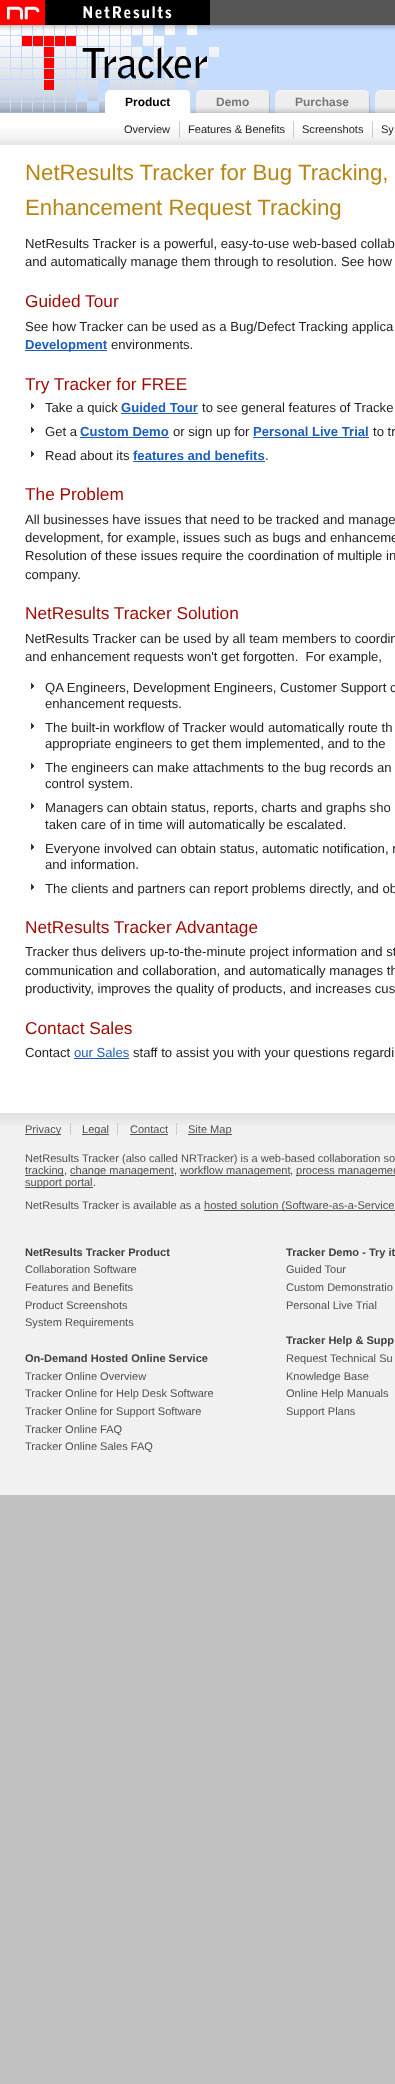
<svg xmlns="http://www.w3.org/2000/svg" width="395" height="2084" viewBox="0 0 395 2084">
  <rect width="100%" height="100%" fill="rgb(193,193,193)"/>
  <rect x="0" y="113" width="395" height="1000" fill="rgb(255,255,255)"/>
  <rect x="210" y="0" width="185" height="25" fill="rgb(85,85,85)"/>
  <image x="0" y="0" width="210" height="25" href="pic1.png"/>
  <image x="0" y="25" width="395" height="65" href="pic2.png"/>
  <rect x="0" y="90" width="375" height="1" fill="rgb(197,220,253)"/>
  <image x="0" y="91" width="375" height="22" href="pic3.png"/>
  <image x="105" y="90" width="86" height="23" href="pic4.png"/>
  <image x="105" y="90" width="5" height="5" href="pic5.png"/>
  <image x="196" y="90" width="74" height="23" href="pic6.png"/>
  <image x="196" y="90" width="5" height="5" href="pic7.png"/>
  <image x="275" y="90" width="95" height="23" href="pic8.png"/>
  <image x="275" y="90" width="5" height="5" href="pic7.png"/>
  <image x="375" y="90" width="20" height="23" href="pic9.png"/>
  <image x="375" y="90" width="5" height="5" href="pic7.png"/>
  <text x="125" y="106" font-family="Liberation Sans" font-size="12" font-weight="bold" fill="rgb(0,0,0)">Product</text>
  <g font-family="Liberation Sans" font-size="12" font-weight="bold" fill="rgb(119,119,119)">
    <text x="216" y="106">Demo</text>
    <text x="295" y="106">Purchase</text>
  </g>
  <image x="0" y="128" width="395" height="17" href="pic10.png"/>
  <rect x="179" y="121" width="1" height="17" fill="rgb(204,204,204)"/>
  <text x="124" y="133" font-family="Liberation Sans" font-size="11.05" fill="rgb(34,34,34)">Overview</text>
  <rect x="293" y="121" width="1" height="17" fill="rgb(204,204,204)"/>
  <text x="188" y="133" font-family="Liberation Sans" font-size="11.05" fill="rgb(34,34,34)">Features &amp; Benefits</text>
  <rect x="372" y="121" width="1" height="17" fill="rgb(204,204,204)"/>
  <g font-family="Liberation Sans" font-size="11.05" fill="rgb(34,34,34)">
    <text x="302" y="133">Screenshots</text>
    <text x="381" y="133">Sy</text>
  </g>
  <g font-family="Liberation Sans" font-size="22.25" fill="rgb(184,133,22)">
    <text>
      <tspan x="25" y="180">NetResults Tracker for Bug Tracking,</tspan>
      <tspan x="25" y="215">Enhancement Request Tracking</tspan>
    </text>
  </g>
  <g font-family="Liberation Sans" font-size="13.1" fill="rgb(34,34,34)">
    <text>
      <tspan x="25" y="248">NetResults Tracker is a powerful, easy-to-use web-based collab</tspan>
      <tspan x="25" y="266">and automatically manage them through to resolution. See how</tspan>
    </text>
  </g>
  <text x="25" y="307" font-family="Liberation Sans" font-size="17.25" fill="rgb(157,9,3)">Guided Tour</text>
  <text x="25" y="331" font-family="Liberation Sans" font-size="13.1" fill="rgb(34,34,34)">See how Tracker can be used as a Bug/Defect Tracking applica</text>
  <rect x="25" y="350" width="82" height="1" fill="rgb(29,93,187)"/>
  <text x="25" y="349" font-family="Liberation Sans" font-size="13.1" font-weight="bold" fill="rgb(29,93,187)">Development</text>
  <text x="111" y="349" font-family="Liberation Sans" font-size="13.1" fill="rgb(34,34,34)">environments.</text>
  <text x="25" y="390" font-family="Liberation Sans" font-size="17.25" fill="rgb(157,9,3)">Try Tracker for FREE</text>
  <image x="31" y="402" width="4" height="7" href="pic11.png"/>
  <text x="45" y="412" font-family="Liberation Sans" font-size="13.1" fill="rgb(34,34,34)">Take a quick</text>
  <text x="121" y="412" font-family="Liberation Sans" font-size="13.1" font-weight="bold" fill="rgb(29,93,187)">Guided Tour</text>
  <rect x="121" y="413" width="77" height="1" fill="rgb(29,93,187)"/>
  <text x="202" y="412" font-family="Liberation Sans" font-size="13.1" fill="rgb(34,34,34)">to see general features of Tracke</text>
  <image x="31" y="426" width="4" height="7" href="pic11.png"/>
  <text x="45" y="436" font-family="Liberation Sans" font-size="13.1" fill="rgb(34,34,34)">Get a</text>
  <text x="80" y="436" font-family="Liberation Sans" font-size="13.1" font-weight="bold" fill="rgb(29,93,187)">Custom Demo</text>
  <rect x="80" y="437" width="89" height="1" fill="rgb(29,93,187)"/>
  <text x="173" y="436" font-family="Liberation Sans" font-size="13.1" fill="rgb(34,34,34)">or sign up for</text>
  <text x="253" y="436" font-family="Liberation Sans" font-size="13.1" font-weight="bold" fill="rgb(29,93,187)">Personal Live Trial</text>
  <rect x="253" y="437" width="116" height="1" fill="rgb(29,93,187)"/>
  <text x="373" y="436" font-family="Liberation Sans" font-size="13.1" fill="rgb(34,34,34)">to tr</text>
  <image x="31" y="450" width="4" height="7" href="pic11.png"/>
  <text x="45" y="460" font-family="Liberation Sans" font-size="13.1" fill="rgb(34,34,34)">Read about its</text>
  <text x="133" y="460" font-family="Liberation Sans" font-size="13.1" font-weight="bold" fill="rgb(29,93,187)">features and benefits</text>
  <rect x="133" y="461" width="132" height="1" fill="rgb(29,93,187)"/>
  <text x="265" y="460" font-family="Liberation Sans" font-size="13.1" fill="rgb(34,34,34)">.</text>
  <text x="25" y="500" font-family="Liberation Sans" font-size="17.25" fill="rgb(157,9,3)">The Problem</text>
  <g font-family="Liberation Sans" font-size="13.1" fill="rgb(34,34,34)">
    <text>
      <tspan x="25" y="524">All businesses have issues that need to be tracked and manage</tspan>
      <tspan x="25" y="542">development, for example, issues such as bugs and enhanceme</tspan>
      <tspan x="25" y="560">Resolution of these issues require the coordination of multiple in</tspan>
      <tspan x="25" y="579">company.</tspan>
    </text>
  </g>
  <text x="25" y="619" font-family="Liberation Sans" font-size="17.25" fill="rgb(157,9,3)">NetResults Tracker Solution</text>
  <g font-family="Liberation Sans" font-size="13.1" fill="rgb(34,34,34)">
    <text xml:space="preserve"><tspan x="25" y="643">NetResults Tracker can be used by all team members to coordin</tspan><tspan x="25" y="661">and enhancement requests won't get forgotten.  For example,</tspan></text>
  </g>
  <image x="31" y="682" width="4" height="7" href="pic11.png"/>
  <g font-family="Liberation Sans" font-size="13.1" fill="rgb(34,34,34)">
    <text>
      <tspan x="45" y="692">QA Engineers, Development Engineers, Customer Support c</tspan>
      <tspan x="45" y="708">enhancement requests.</tspan>
    </text>
  </g>
  <image x="31" y="722" width="4" height="7" href="pic11.png"/>
  <g font-family="Liberation Sans" font-size="13.1" fill="rgb(34,34,34)">
    <text x="45" y="732">The built-in workflow of Tracker would</text>
    <text x="268" y="732">automatically route th</text>
    <text x="45" y="748">appropriate engineers to get them implemented, and to the</text>
  </g>
  <image x="31" y="762" width="4" height="7" href="pic11.png"/>
  <g font-family="Liberation Sans" font-size="13.1" fill="rgb(34,34,34)">
    <text>
      <tspan x="45" y="772">The engineers can make attachments to the bug records an</tspan>
      <tspan x="45" y="788">control system.</tspan>
    </text>
  </g>
  <image x="31" y="802" width="4" height="7" href="pic11.png"/>
  <g font-family="Liberation Sans" font-size="13.1" fill="rgb(34,34,34)">
    <text>
      <tspan x="45" y="812">Managers can obtain status, reports, charts and graphs sho</tspan>
      <tspan x="45" y="829">taken care of in time will automatically be escalated.</tspan>
    </text>
  </g>
  <image x="31" y="843" width="4" height="7" href="pic11.png"/>
  <g font-family="Liberation Sans" font-size="13.1" fill="rgb(34,34,34)">
    <text>
      <tspan x="45" y="853">Everyone involved can obtain status, automatic notification, r</tspan>
      <tspan x="45" y="869">and information.</tspan>
    </text>
  </g>
  <image x="31" y="883" width="4" height="7" href="pic11.png"/>
  <text x="45" y="893" font-family="Liberation Sans" font-size="13.1" fill="rgb(34,34,34)">The clients and partners can report problems directly, and ob</text>
  <text x="25" y="933" font-family="Liberation Sans" font-size="17.25" fill="rgb(157,9,3)">NetResults Tracker Advantage</text>
  <g font-family="Liberation Sans" font-size="13.1" fill="rgb(34,34,34)">
    <text>
      <tspan x="25" y="956">Tracker thus delivers up-to-the-minute project information and st</tspan>
      <tspan x="25" y="975">communication and collaboration, and automatically manages th</tspan>
      <tspan x="25" y="993">productivity, improves the quality of products, and increases cus</tspan>
    </text>
  </g>
  <text x="25" y="1034" font-family="Liberation Sans" font-size="17.25" fill="rgb(157,9,3)">Contact Sales</text>
  <text x="25" y="1057" font-family="Liberation Sans" font-size="13.1" fill="rgb(34,34,34)">Contact</text>
  <text x="74" y="1057" font-family="Liberation Sans" font-size="13.1" fill="rgb(29,93,187)">our Sales</text>
  <rect x="74" y="1058" width="55" height="1" fill="rgb(29,93,187)"/>
  <text x="133" y="1057" font-family="Liberation Sans" font-size="13.1" fill="rgb(34,34,34)">staff to assist you with your questions regardi</text>
  <rect x="0" y="1125" width="395" height="370" fill="rgb(241,241,241)"/>
  <image x="0" y="1113" width="395" height="12" href="pic12.png"/>
  <rect x="25" y="1134" width="36" height="1" fill="rgb(80,80,80)"/>
  <text x="25" y="1133" font-family="Liberation Sans" font-size="11.05" fill="rgb(80,80,80)">Privacy</text>
  <rect x="70" y="1123" width="1" height="12" fill="rgb(204,204,204)"/>
  <rect x="82" y="1134" width="27" height="1" fill="rgb(80,80,80)"/>
  <text x="82" y="1133" font-family="Liberation Sans" font-size="11.05" fill="rgb(80,80,80)">Legal</text>
  <rect x="117" y="1123" width="1" height="12" fill="rgb(204,204,204)"/>
  <text x="130" y="1133" font-family="Liberation Sans" font-size="11.05" fill="rgb(80,80,80)">Contact</text>
  <rect x="176" y="1123" width="1" height="12" fill="rgb(204,204,204)"/>
  <rect x="130" y="1134" width="38" height="1" fill="rgb(80,80,80)"/>
  <rect x="188" y="1134" width="44" height="1" fill="rgb(80,80,80)"/>
  <g font-family="Liberation Sans" font-size="11.05" fill="rgb(80,80,80)">
    <text x="188" y="1133">Site Map</text>
    <text x="25" y="1162">NetResults Tracker (also called NRTracker) is a web-based collaboration so</text>
  </g>
  <rect x="25" y="1175" width="39" height="1" fill="rgb(80,80,80)"/>
  <g font-family="Liberation Sans" font-size="11.05" fill="rgb(80,80,80)">
    <text x="25" y="1174">tracking</text>
    <text x="64" y="1174">,</text>
  </g>
  <rect x="70" y="1175" width="104" height="1" fill="rgb(80,80,80)"/>
  <g font-family="Liberation Sans" font-size="11.05" fill="rgb(80,80,80)">
    <text x="70" y="1174">change management</text>
    <text x="174" y="1174">,</text>
  </g>
  <rect x="180" y="1175" width="110" height="1" fill="rgb(80,80,80)"/>
  <g font-family="Liberation Sans" font-size="11.05" fill="rgb(80,80,80)">
    <text x="180" y="1174">workflow management</text>
    <text x="290" y="1174">,</text>
  </g>
  <rect x="296" y="1175" width="99" height="1" fill="rgb(80,80,80)"/>
  <text x="296" y="1174" font-family="Liberation Sans" font-size="11.05" fill="rgb(80,80,80)">process managemen</text>
  <rect x="25" y="1187" width="68" height="1" fill="rgb(80,80,80)"/>
  <g font-family="Liberation Sans" font-size="11.05" fill="rgb(80,80,80)">
    <text x="25" y="1186">support portal</text>
    <text x="93" y="1186">.</text>
    <text x="25" y="1209">NetResults Tracker is available as a</text>
  </g>
  <rect x="204" y="1210" width="191" height="1" fill="rgb(80,80,80)"/>
  <text x="204" y="1209" font-family="Liberation Sans" font-size="11.05" fill="rgb(80,80,80)">hosted solution (Software-as-a-Service</text>
  <text x="25" y="1256" font-family="Liberation Sans" font-size="11.05" font-weight="bold" fill="rgb(64,64,64)">NetResults Tracker Product</text>
  <g font-family="Liberation Sans" font-size="11.05" fill="rgb(80,80,80)">
    <text>
      <tspan x="25" y="1273">Collaboration Software</tspan>
      <tspan x="25" y="1291">Features and Benefits</tspan>
      <tspan x="25" y="1309">Product Screenshots</tspan>
      <tspan x="25" y="1326">System Requirements</tspan>
    </text>
  </g>
  <text x="25" y="1362" font-family="Liberation Sans" font-size="11.05" font-weight="bold" fill="rgb(64,64,64)">On-Demand Hosted Online Service</text>
  <g font-family="Liberation Sans" font-size="11.05" fill="rgb(80,80,80)">
    <text>
      <tspan x="25" y="1380">Tracker Online Overview</tspan>
      <tspan x="25" y="1397">Tracker Online for Help Desk Software</tspan>
      <tspan x="25" y="1415">Tracker Online for Support Software</tspan>
      <tspan x="25" y="1433">Tracker Online FAQ</tspan>
      <tspan x="25" y="1450">Tracker Online Sales FAQ</tspan>
    </text>
  </g>
  <text x="286" y="1256" font-family="Liberation Sans" font-size="11.05" font-weight="bold" fill="rgb(64,64,64)">Tracker Demo - Try it</text>
  <g font-family="Liberation Sans" font-size="11.05" fill="rgb(80,80,80)">
    <text>
      <tspan x="286" y="1273">Guided Tour</tspan>
      <tspan x="286" y="1291">Custom Demonstratio</tspan>
      <tspan x="286" y="1309">Personal Live Trial</tspan>
    </text>
  </g>
  <text x="286" y="1344" font-family="Liberation Sans" font-size="11.05" font-weight="bold" fill="rgb(64,64,64)">Tracker Help &amp; Supp</text>
  <g font-family="Liberation Sans" font-size="11.05" fill="rgb(80,80,80)">
    <text>
      <tspan x="286" y="1362">Request Technical Su</tspan>
      <tspan x="286" y="1380">Knowledge Base</tspan>
      <tspan x="286" y="1397">Online Help Manuals</tspan>
      <tspan x="286" y="1415">Support Plans</tspan>
    </text>
  </g>
</svg>
